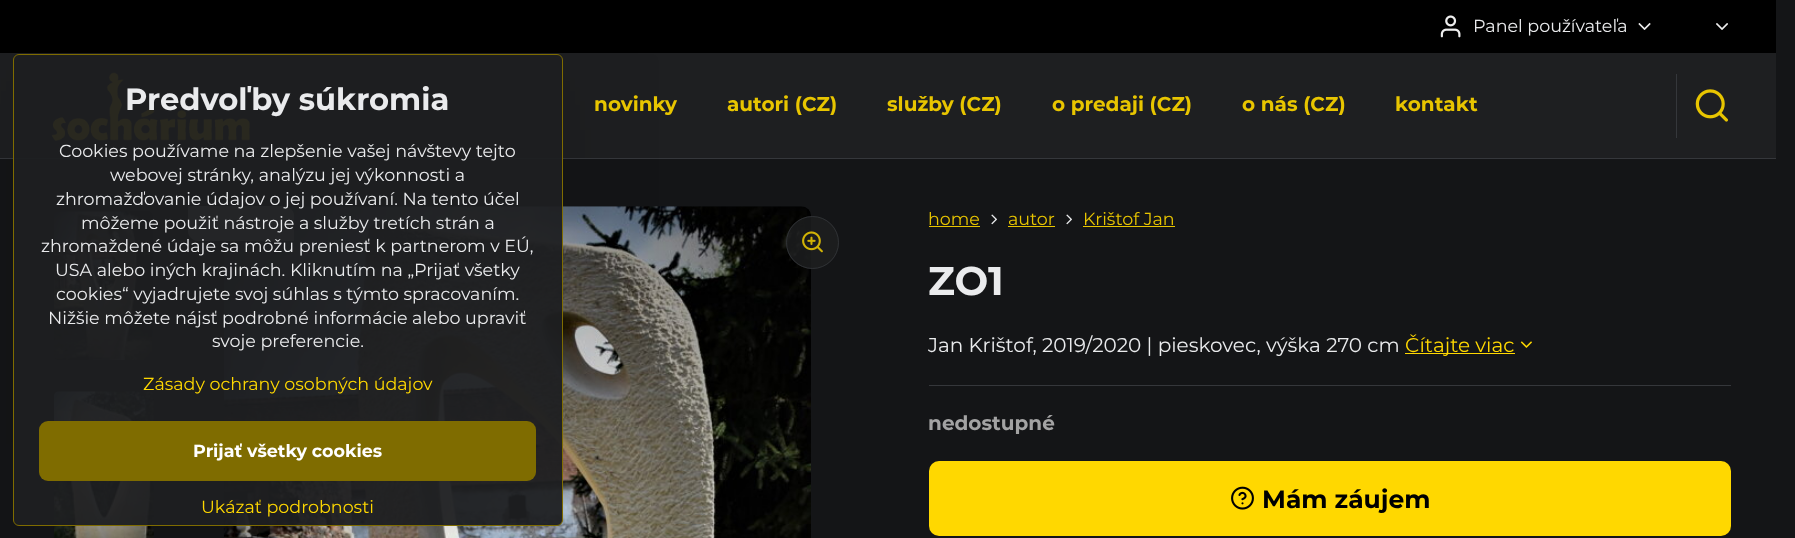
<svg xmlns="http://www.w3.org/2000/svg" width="1795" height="538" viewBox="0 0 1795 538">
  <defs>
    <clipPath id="clip1"><path d="M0 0H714V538H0ZM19 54H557C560.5 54 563 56.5 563 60V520C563 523.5 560.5 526 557 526H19C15.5 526 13 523.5 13 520V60C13 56.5 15.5 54 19 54Z" clip-rule="evenodd"/></clipPath>
  </defs>
  <rect width="100%" height="100%" fill="rgb(20,21,23)"/>
  <rect x="0" y="0" width="1776" height="53" fill="rgb(0,0,0)"/>
  <rect x="0" y="53" width="1776" height="105" fill="rgb(30,31,33)"/>
  <rect x="0" y="158" width="1776" height="1" fill="rgb(53,55,59)"/>
  <image x="51" y="72" width="199" height="69" href="pic4.png"/>
  <image x="53" y="211" width="100" height="149" href="pic6.png"/>
  <image x="53" y="391" width="101" height="147" href="pic7.png"/>
  <image x="223" y="206" width="588" height="332" href="pic8.png"/>
  <path d="M188 206H284C289.5 206 294 210.5 294 216V241H198C192.5 241 188 236.5 188 231Z" fill="rgb(163,163,163)"/>
  <g clip-path="url(#clip1)">
    <rect x="13" y="54" width="550" height="472" rx="6" fill="rgba(0,0,0,0.1)" filter="blur(50px)"/>
  </g>
  <rect x="13.5" y="54.5" width="549" height="471" rx="5.5" fill="rgba(30,31,33,0.95)" stroke="rgb(127,108,0)"/>
  <text x="125" y="110" font-family="'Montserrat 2'" font-size="30.6" font-weight="100" fill="rgb(234,235,237)">Predvoľby súkromia</text>
  <g font-family="Montserrat" font-size="17.5" font-weight="100" fill="rgb(234,235,237)">
    <text x="59" y="157">Cookies používame na zlepšenie vašej návštevy tejto</text>
    <text x="110" y="181">webovej stránky, analýzu jej výkonnosti a</text>
    <text x="56" y="205">zhromažďovanie údajov o jej používaní. Na tento účel</text>
    <text x="81" y="229">môžeme použiť nástroje a služby tretích strán a</text>
    <text x="41" y="252">zhromaždené údaje sa môžu preniesť k partnerom v EÚ,</text>
    <text x="55" y="276">USA alebo iných krajinách. Kliknutím na „Prijať všetky</text>
    <text x="56" y="300">cookies“ vyjadrujete svoj súhlas s týmto spracovaním.</text>
    <text x="48" y="324">Nižšie môžete nájsť podrobné informácie alebo upraviť</text>
    <text x="212" y="347">svoje preferencie.</text>
  </g>
  <text x="143" y="390" font-family="Montserrat" font-size="17.5" font-weight="100" fill="rgb(255,216,0)">Zásady ochrany osobných údajov</text>
  <rect x="39" y="421" width="497" height="60" rx="9" fill="rgb(127,108,0)"/>
  <text x="193" y="457" font-family="'Montserrat 2'" font-size="17.5" font-weight="100" fill="rgb(255,255,255)">Prijať všetky cookies</text>
  <text x="201" y="513" font-family="Montserrat" font-size="17.5" font-weight="100" fill="rgb(255,216,0)">Ukázať podrobnosti</text>
  <image x="1440" y="15" width="21" height="23" href="pic1.png"/>
  <text x="1473" y="32" font-family="Montserrat" font-size="17.5" font-weight="100" fill="rgb(234,235,237)">Panel používateľa</text>
  <image x="1638" y="23" width="13" height="7" href="pic2.png"/>
  <image x="1716" y="23" width="12" height="7" href="pic3.png"/>
  <rect x="1676" y="74" width="1" height="64" fill="rgb(53,55,59)"/>
  <image x="1695" y="89" width="33" height="33" href="pic5.png"/>
  <g font-family="'Montserrat 2'" font-size="20" font-weight="100" fill="rgb(232,197,0)">
    <text x="594" y="111">novinky</text>
    <text x="727" y="111">autori (CZ)</text>
    <text x="887" y="111">služby (CZ)</text>
    <text x="1052" y="111">o predaji (CZ)</text>
    <text x="1242" y="111">o nás (CZ)</text>
    <text x="1395" y="111">kontakt</text>
  </g>
  <circle cx="812.5" cy="242.5" r="26.5" fill="rgba(30,31,33,0.8)"/>
  <circle cx="812.5" cy="242.5" r="26" fill="none" stroke="rgba(53,55,59,0.8)"/>
  <image x="802" y="231" width="21" height="22" href="pic9.png"/>
  <text x="928" y="225" font-family="Montserrat" font-size="17.5" font-weight="100" fill="rgb(232,197,0)">home</text>
  <rect x="929" y="226" width="51" height="1" fill="rgb(232,197,0)"/>
  <image x="991" y="214" width="6" height="11" href="pic10.png"/>
  <text x="1008" y="225" font-family="Montserrat" font-size="17.5" font-weight="100" fill="rgb(232,197,0)">autor</text>
  <rect x="1008" y="226" width="47" height="1" fill="rgb(232,197,0)"/>
  <image x="1066" y="214" width="6" height="11" href="pic10.png"/>
  <text x="1083" y="225" font-family="Montserrat" font-size="17.5" font-weight="100" fill="rgb(232,197,0)">Krištof Jan</text>
  <rect x="1083" y="226" width="92" height="1" fill="rgb(232,197,0)"/>
  <text x="928" y="295" font-family="'Montserrat 2'" font-size="40" font-weight="100" fill="rgb(234,235,237)">ZO1</text>
  <text x="928" y="352" font-family="Montserrat" font-size="20" font-weight="100" fill="rgb(234,235,237)">Jan Krištof, 2019/2020 | pieskovec, výška 270 cm</text>
  <rect x="1405" y="353" width="110" height="1" fill="rgb(255,216,0)"/>
  <text x="1405" y="352" font-family="Montserrat" font-size="20" font-weight="100" fill="rgb(255,216,0)">Čítajte viac</text>
  <image x="1520" y="341" width="12" height="7" href="pic11.png"/>
  <rect x="929" y="385" width="802" height="1" fill="rgb(53,55,59)"/>
  <text x="928" y="430" font-family="'Montserrat 2'" font-size="20" font-weight="100" fill="rgb(163,163,163)">nedostupné</text>
  <rect x="929" y="461" width="802" height="75" rx="10" fill="rgb(255,216,0)"/>
  <image x="1231" y="486" width="23" height="24" href="pic12.png"/>
  <text x="1262" y="508" font-family="'Montserrat 2'" font-size="25" font-weight="100" fill="rgb(0,0,0)">Mám záujem</text>
</svg>
